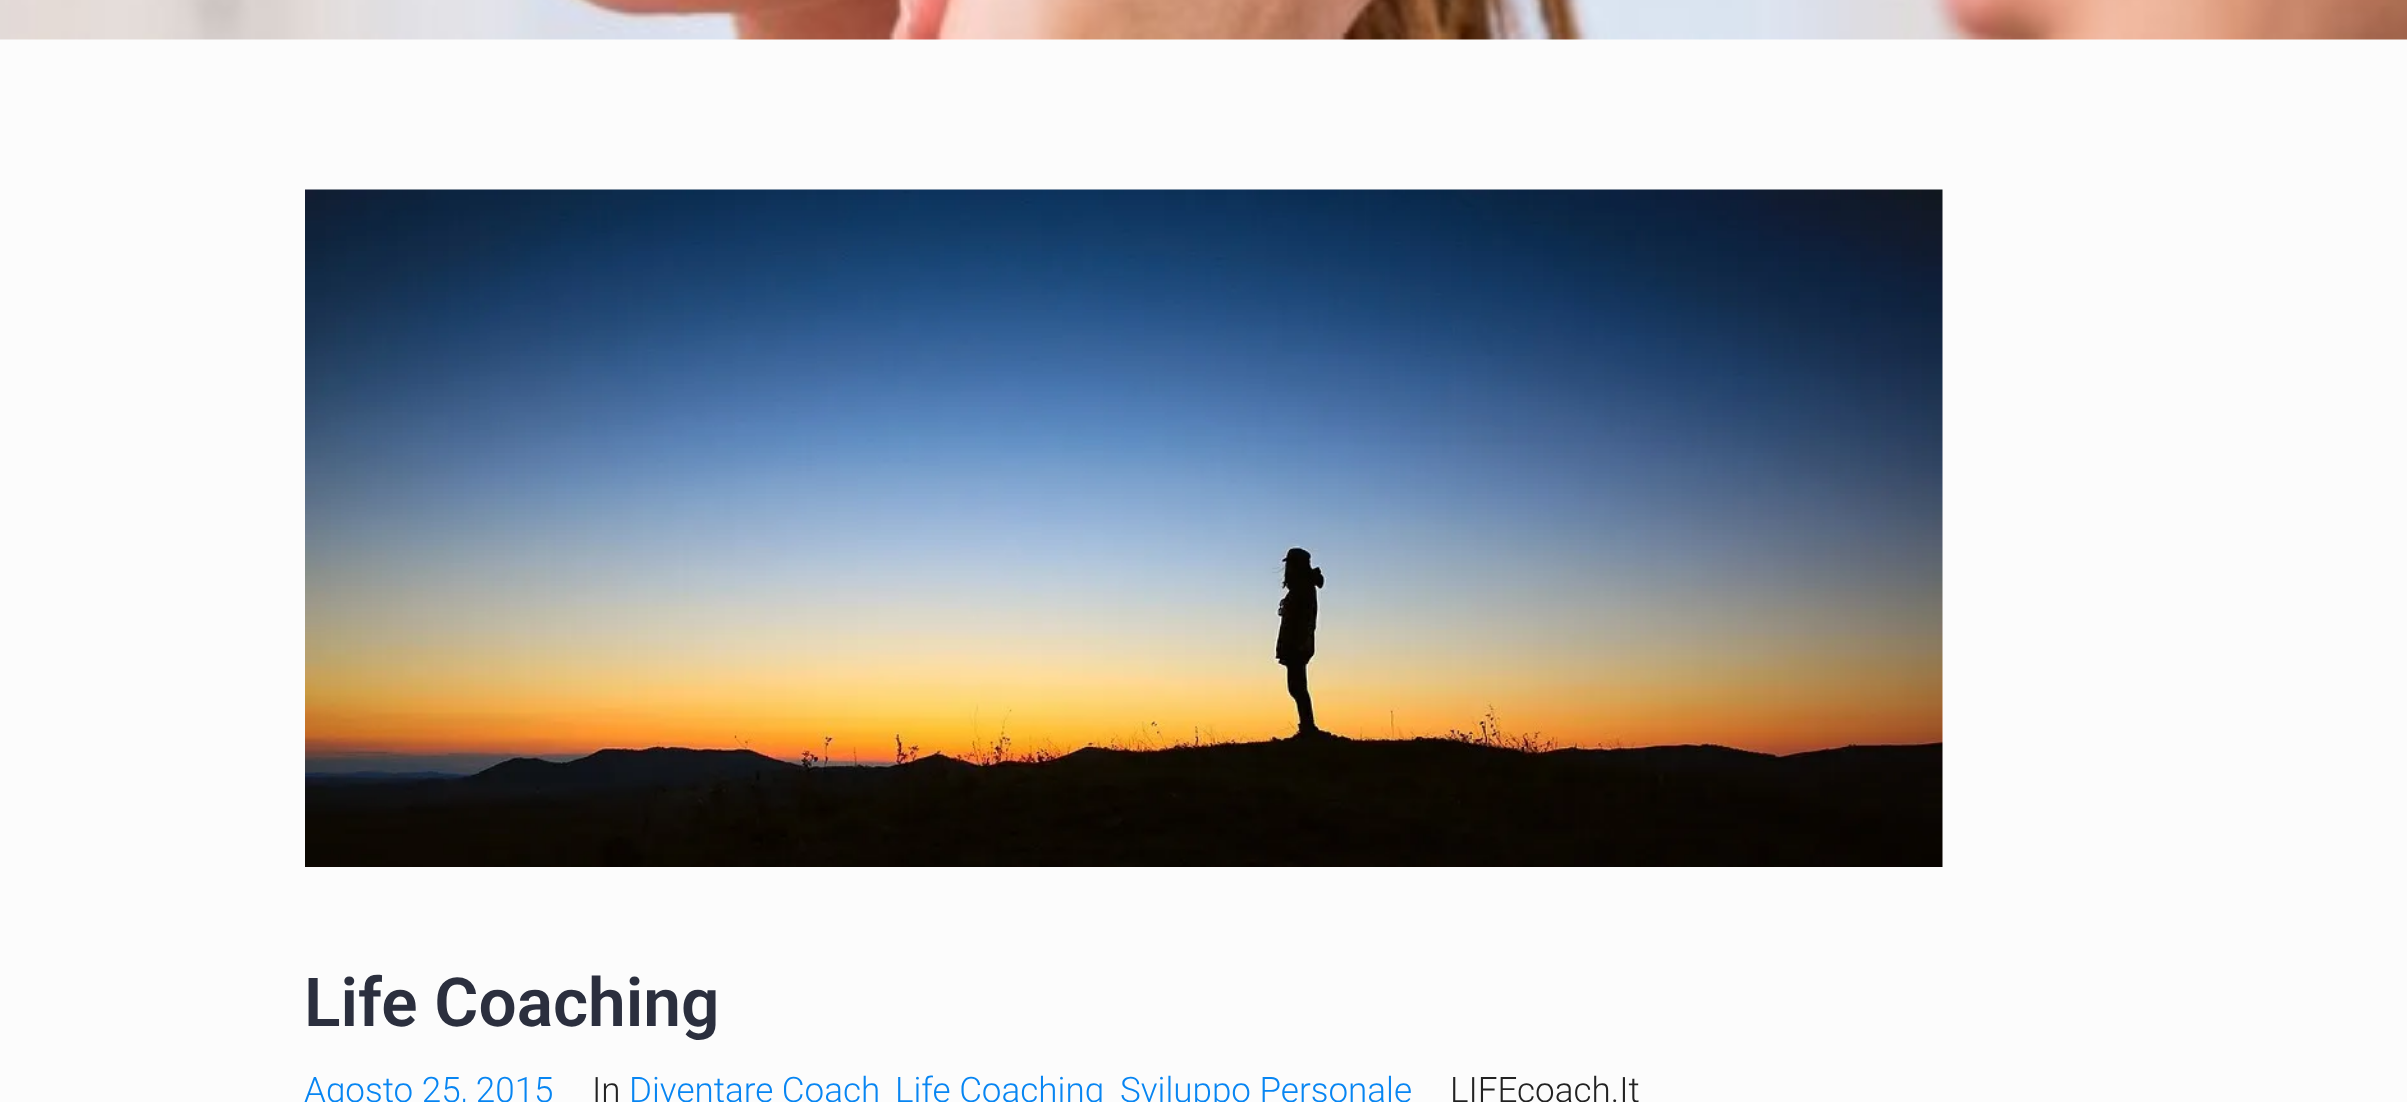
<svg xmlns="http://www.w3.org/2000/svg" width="2407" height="1102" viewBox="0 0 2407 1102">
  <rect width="100%" height="100%" fill="rgb(252,252,252)"/>
  <image x="0" y="0" width="2407" height="40" href="pic1.png"/>
  <image x="305" y="189" width="1638" height="678" href="pic2.png"/>
  <text x="304" y="1026" font-family="Roboto" font-size="67.5" font-weight="600" fill="rgb(43,47,62)">Life Coaching</text>
  <text x="304" y="1102" font-family="Roboto" font-size="35" font-weight="300" fill="rgb(7,133,242)">Agosto 25, 2015</text>
  <text x="592" y="1102" font-family="Roboto" font-size="35" font-weight="300" fill="rgb(34,34,34)">In</text>
  <g font-family="Roboto" font-size="35" font-weight="300" fill="rgb(7,133,242)">
    <text x="629" y="1102">Diventare Coach</text>
    <text x="895" y="1102">Life Coaching</text>
    <text x="1120" y="1102">Sviluppo Personale</text>
  </g>
  <text x="1450" y="1102" font-family="Roboto" font-size="35" font-weight="300" fill="rgb(34,34,34)">LIFEcoach.It</text>
</svg>
